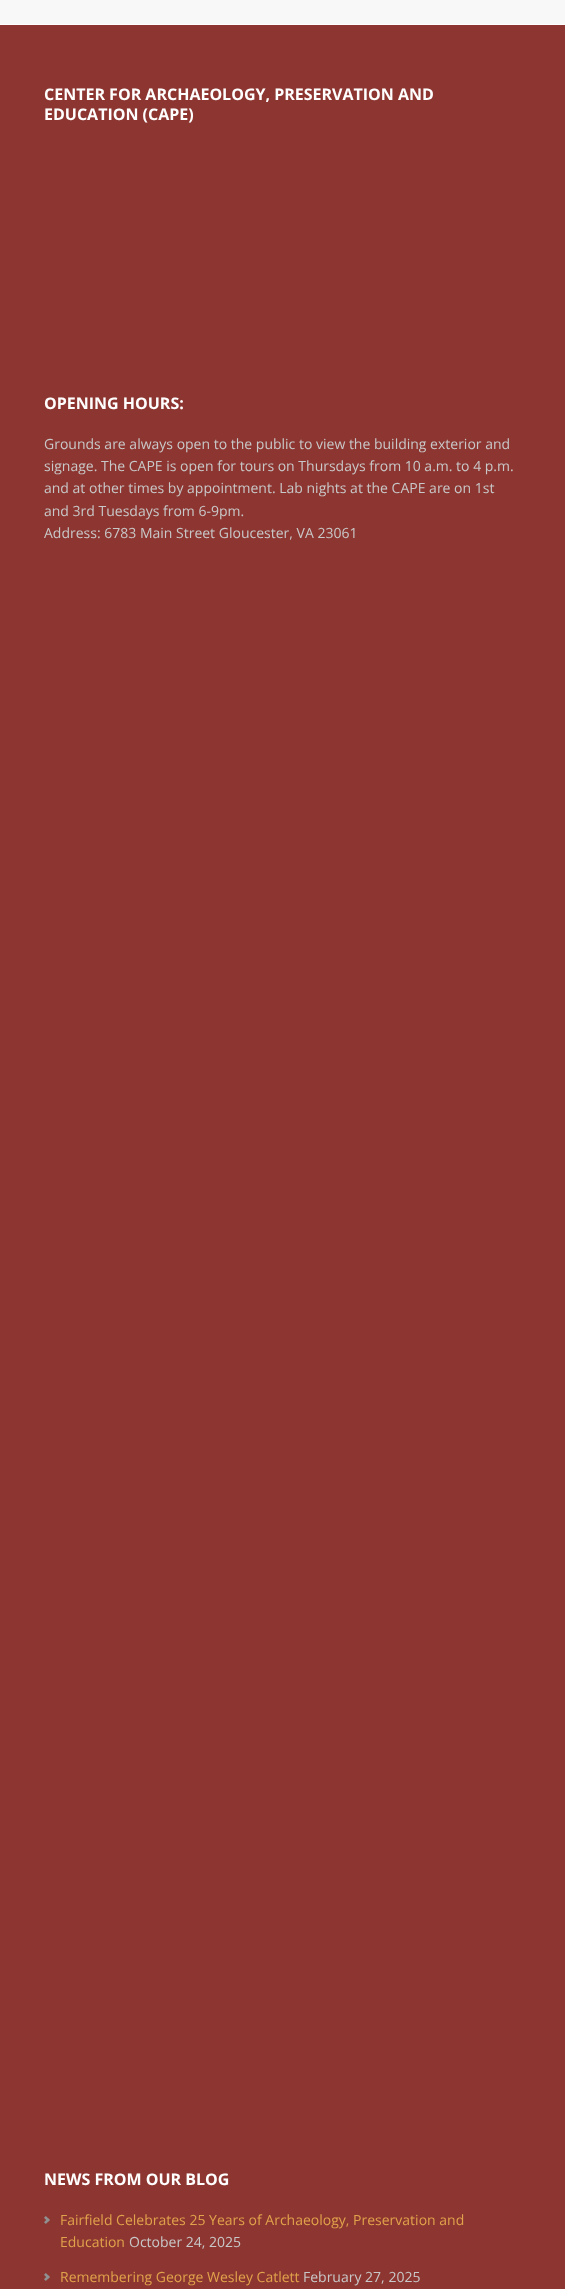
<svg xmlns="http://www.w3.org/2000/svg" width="565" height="2289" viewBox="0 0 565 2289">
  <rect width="100%" height="100%" fill="rgb(141,54,49)"/>
  <rect x="-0.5" y="-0.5" width="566" height="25" fill="none" stroke="rgb(255,255,255)"/>
  <rect x="0" y="0" width="565" height="24" fill="rgb(248,248,248)"/>
  <g font-family="Open Sans" font-size="16" font-weight="bold" fill="rgb(255,255,255)">
    <text>
      <tspan x="44" y="100">CENTER FOR ARCHAEOLOGY, PRESERVATION AND</tspan>
      <tspan x="44" y="120">EDUCATION (CAPE)</tspan>
    </text>
    <text x="44" y="409">OPENING HOURS:</text>
  </g>
  <g font-family="Open Sans" font-size="14" fill="rgb(200,200,200)">
    <text>
      <tspan x="44" y="449">Grounds are always open to the public to view the building exterior and</tspan>
      <tspan x="44" y="471">signage. The CAPE is open for tours on Thursdays from 10 a.m. to 4 p.m.</tspan>
      <tspan x="44" y="493">and at other times by appointment. Lab nights at the CAPE are on 1st</tspan>
      <tspan x="44" y="516">and 3rd Tuesdays from 6-9pm.</tspan>
      <tspan x="44" y="538">Address: 6783 Main Street Gloucester, VA 23061</tspan>
    </text>
  </g>
  <text x="44" y="2185" font-family="Open Sans" font-size="16" font-weight="bold" fill="rgb(255,255,255)">NEWS FROM OUR BLOG</text>
  <image x="44" y="2216" width="6" height="8" href="pic1.png"/>
  <g font-family="Open Sans" font-size="14" fill="rgb(224,162,75)">
    <text>
      <tspan x="60" y="2225">Fairfield Celebrates 25 Years of Archaeology, Preservation and</tspan>
      <tspan x="60" y="2247">Education</tspan>
    </text>
  </g>
  <text x="129" y="2247" font-family="Open Sans" font-size="14" fill="rgb(200,200,200)">October 24, 2025</text>
  <image x="44" y="2273" width="6" height="8" href="pic1.png"/>
  <text x="60" y="2282" font-family="Open Sans" font-size="14" fill="rgb(224,162,75)">Remembering George Wesley Catlett</text>
  <text x="303" y="2282" font-family="Open Sans" font-size="14" fill="rgb(200,200,200)">February 27, 2025</text>
</svg>
